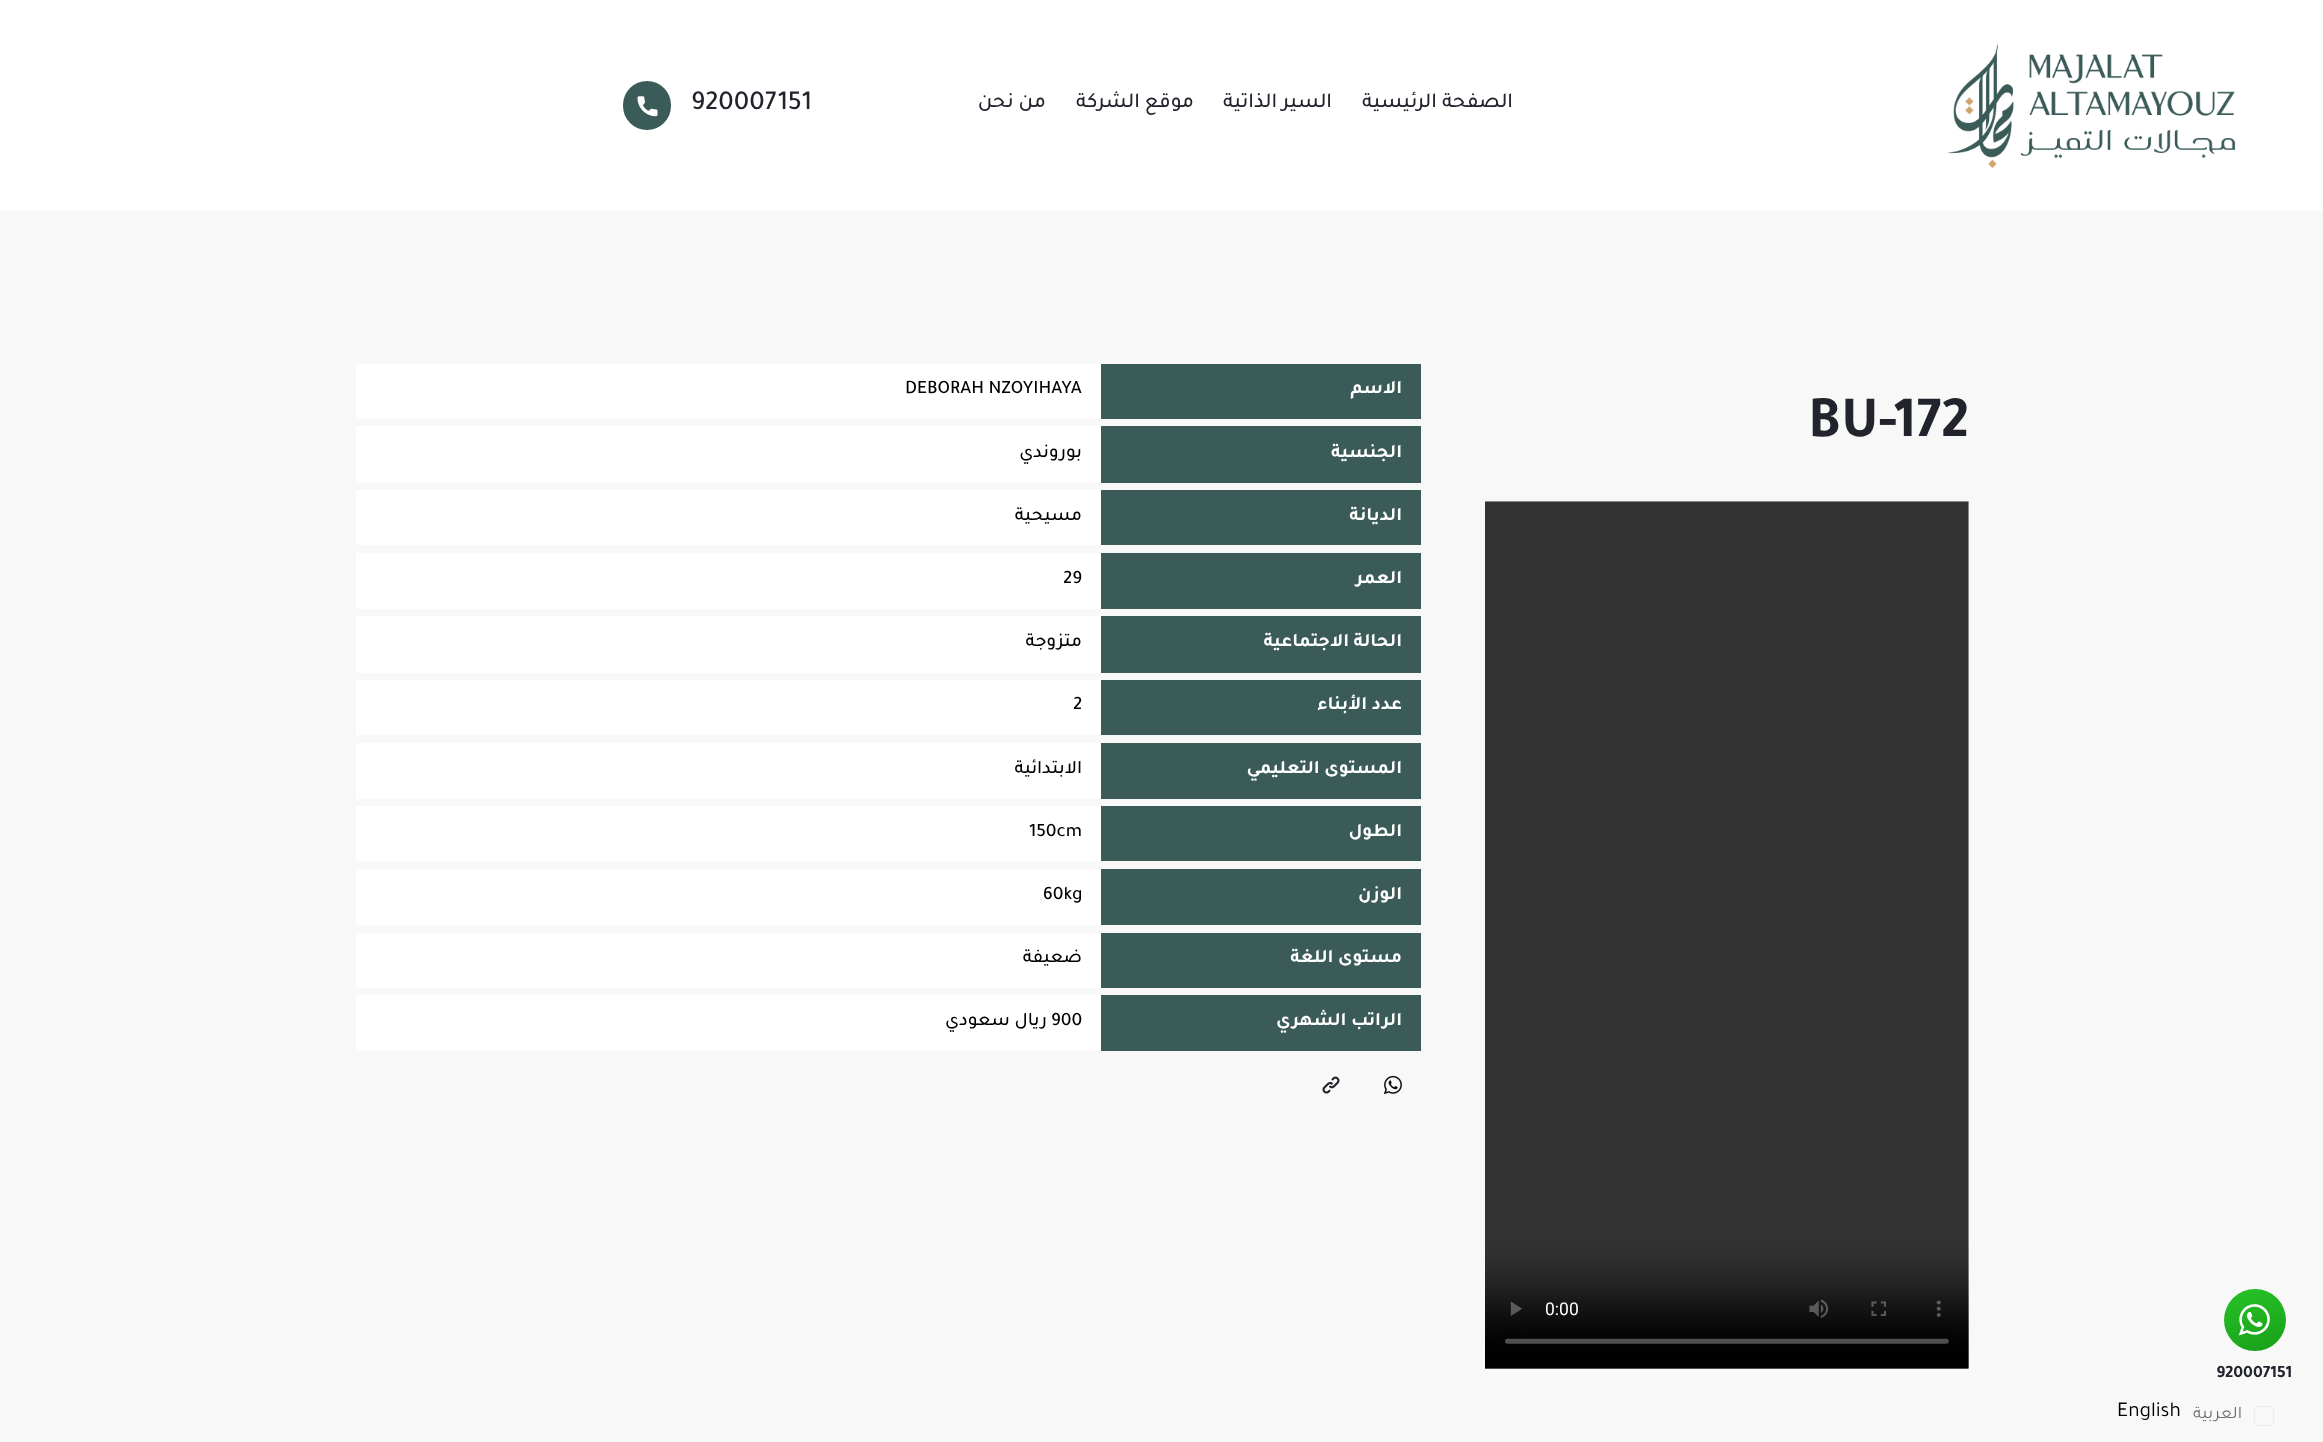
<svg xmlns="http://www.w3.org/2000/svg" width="2323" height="1442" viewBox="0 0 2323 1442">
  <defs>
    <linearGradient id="g1" gradientUnits="userSpaceOnUse" x1="2244" y1="1283" x2="2266" y2="1357"><stop offset="0" stop-color="rgb(39,195,39)"/><stop offset="1" stop-color="rgb(25,159,25)"/></linearGradient>
  </defs>
  <rect width="100%" height="100%" fill="rgb(248,248,248)"/>
  <rect x="0" y="0" width="2323" height="211" fill="rgb(255,255,255)"/>
  <image x="1947" y="44" width="289" height="124" href="pic1.png"/>
  <g font-family="Tajawal" font-size="21.25" font-weight="500" direction="rtl" fill="rgb(33,36,44)">
    <text x="1513" y="107">الصفحة الرئيسية</text>
    <text x="1332" y="107">السير الذاتية</text>
    <text x="1194" y="107">موقع الشركة</text>
    <text x="1046" y="107">من نحن</text>
  </g>
  <text x="691" y="109" font-family="Tajawal" font-size="27.5" font-weight="500" fill="rgb(33,36,44)">920007151</text>
  <rect x="623" y="81" width="48" height="49" rx="24" fill="rgb(59,91,89)"/>
  <image x="637" y="96" width="21" height="21" href="pic2.png"/>
  <circle cx="2255" cy="1320" r="31" fill="url(#g1)"/>
  <image x="2238" y="1304" width="32" height="32" href="pic3.png"/>
  <text x="2216" y="1377" font-family="Tajawal" font-size="17.5" font-weight="bold" fill="rgb(33,36,44)">920007151</text>
  <text x="1808" y="436" font-family="Tajawal" font-size="59" font-weight="bold" fill="rgb(33,36,44)">BU-172</text>
  <image x="1485" y="501" width="484" height="868" href="pic4.png"/>
  <rect x="1101" y="364" width="320" height="55" fill="rgb(59,91,89)"/>
  <text x="1402" y="393" font-family="Tajawal" font-size="19.1" font-weight="bold" direction="rtl" fill="rgb(255,255,255)">الاسم</text>
  <rect x="356" y="364" width="745" height="55" fill="rgb(255,255,255)"/>
  <text x="905" y="393" font-family="Tajawal" font-size="19.1" font-weight="500" fill="rgb(0,0,0)">DEBORAH NZOYIHAYA</text>
  <rect x="1101" y="426" width="320" height="57" fill="rgb(59,91,89)"/>
  <text x="1402" y="457" font-family="Tajawal" font-size="19.1" font-weight="bold" direction="rtl" fill="rgb(255,255,255)">الجنسية</text>
  <rect x="356" y="426" width="745" height="57" fill="rgb(255,255,255)"/>
  <text x="1082" y="457" font-family="Tajawal" font-size="19.1" font-weight="500" direction="rtl" fill="rgb(0,0,0)">بوروندي</text>
  <rect x="1101" y="490" width="320" height="55" fill="rgb(59,91,89)"/>
  <text x="1402" y="520" font-family="Tajawal" font-size="19.1" font-weight="bold" direction="rtl" fill="rgb(255,255,255)">الديانة</text>
  <rect x="356" y="490" width="745" height="55" fill="rgb(255,255,255)"/>
  <text x="1082" y="520" font-family="Tajawal" font-size="19.1" font-weight="500" direction="rtl" fill="rgb(0,0,0)">مسيحية</text>
  <rect x="1101" y="553" width="320" height="56" fill="rgb(59,91,89)"/>
  <text x="1402" y="583" font-family="Tajawal" font-size="19.1" font-weight="bold" direction="rtl" fill="rgb(255,255,255)">العمر</text>
  <rect x="356" y="553" width="745" height="56" fill="rgb(255,255,255)"/>
  <text x="1063" y="583" font-family="Tajawal" font-size="19.1" font-weight="500" fill="rgb(0,0,0)">29</text>
  <rect x="1101" y="616" width="320" height="57" fill="rgb(59,91,89)"/>
  <text x="1402" y="646" font-family="Tajawal" font-size="19.1" font-weight="bold" direction="rtl" fill="rgb(255,255,255)">الحالة الاجتماعية</text>
  <rect x="356" y="616" width="745" height="57" fill="rgb(255,255,255)"/>
  <text x="1082" y="646" font-family="Tajawal" font-size="19.1" font-weight="500" direction="rtl" fill="rgb(0,0,0)">متزوجة</text>
  <rect x="1101" y="680" width="320" height="55" fill="rgb(59,91,89)"/>
  <text x="1402" y="709" font-family="Tajawal" font-size="19.1" font-weight="bold" direction="rtl" fill="rgb(255,255,255)">عدد الأبناء</text>
  <rect x="356" y="680" width="745" height="55" fill="rgb(255,255,255)"/>
  <text x="1073" y="709" font-family="Tajawal" font-size="19.1" font-weight="500" fill="rgb(0,0,0)">2</text>
  <rect x="1101" y="743" width="320" height="56" fill="rgb(59,91,89)"/>
  <text x="1402" y="773" font-family="Tajawal" font-size="19.1" font-weight="bold" direction="rtl" fill="rgb(255,255,255)">المستوى التعليمي</text>
  <rect x="356" y="743" width="745" height="56" fill="rgb(255,255,255)"/>
  <text x="1082" y="773" font-family="Tajawal" font-size="19.1" font-weight="500" direction="rtl" fill="rgb(0,0,0)">الابتدائية</text>
  <rect x="1101" y="806" width="320" height="55" fill="rgb(59,91,89)"/>
  <text x="1402" y="836" font-family="Tajawal" font-size="19.1" font-weight="bold" direction="rtl" fill="rgb(255,255,255)">الطول</text>
  <rect x="356" y="806" width="745" height="55" fill="rgb(255,255,255)"/>
  <text x="1029" y="836" font-family="Tajawal" font-size="19.1" font-weight="500" fill="rgb(0,0,0)">150cm</text>
  <rect x="1101" y="869" width="320" height="56" fill="rgb(59,91,89)"/>
  <text x="1402" y="899" font-family="Tajawal" font-size="19.1" font-weight="bold" direction="rtl" fill="rgb(255,255,255)">الوزن</text>
  <rect x="356" y="869" width="745" height="56" fill="rgb(255,255,255)"/>
  <text x="1043" y="899" font-family="Tajawal" font-size="19.1" font-weight="500" fill="rgb(0,0,0)">60kg</text>
  <rect x="1101" y="933" width="320" height="55" fill="rgb(59,91,89)"/>
  <text x="1402" y="962" font-family="Tajawal" font-size="19.1" font-weight="bold" direction="rtl" fill="rgb(255,255,255)">مستوى اللغة</text>
  <rect x="356" y="933" width="745" height="55" fill="rgb(255,255,255)"/>
  <text x="1082" y="962" font-family="Tajawal" font-size="19.1" font-weight="500" direction="rtl" fill="rgb(0,0,0)">ضعيفة</text>
  <rect x="1101" y="995" width="320" height="56" fill="rgb(59,91,89)"/>
  <text x="1402" y="1025" font-family="Tajawal" font-size="19.1" font-weight="bold" direction="rtl" fill="rgb(255,255,255)">الراتب الشهري</text>
  <rect x="356" y="995" width="745" height="56" fill="rgb(255,255,255)"/>
  <text x="1051" y="1025" font-family="Tajawal" font-size="19.1" font-weight="500" fill="rgb(0,0,0)">900</text>
  <text x="1047" y="1025" font-family="Tajawal" font-size="19.1" font-weight="500" direction="rtl" fill="rgb(0,0,0)">ريال سعودي</text>
  <image x="1383" y="1075" width="19" height="20" href="pic5.png"/>
  <image x="1322" y="1076" width="18" height="18" href="pic6.png"/>
  <rect x="2254.5" y="1406.5" width="19" height="19" rx="4.5" fill="none" stroke="rgb(232,232,232)"/>
  <text x="2242" y="1418" font-family="Tajawal" font-size="17.5" direction="rtl" fill="rgb(107,110,113)">العربية</text>
  <text x="2117" y="1416" font-family="Tajawal" font-size="21.25" fill="rgb(0,0,0)">English</text>
</svg>
